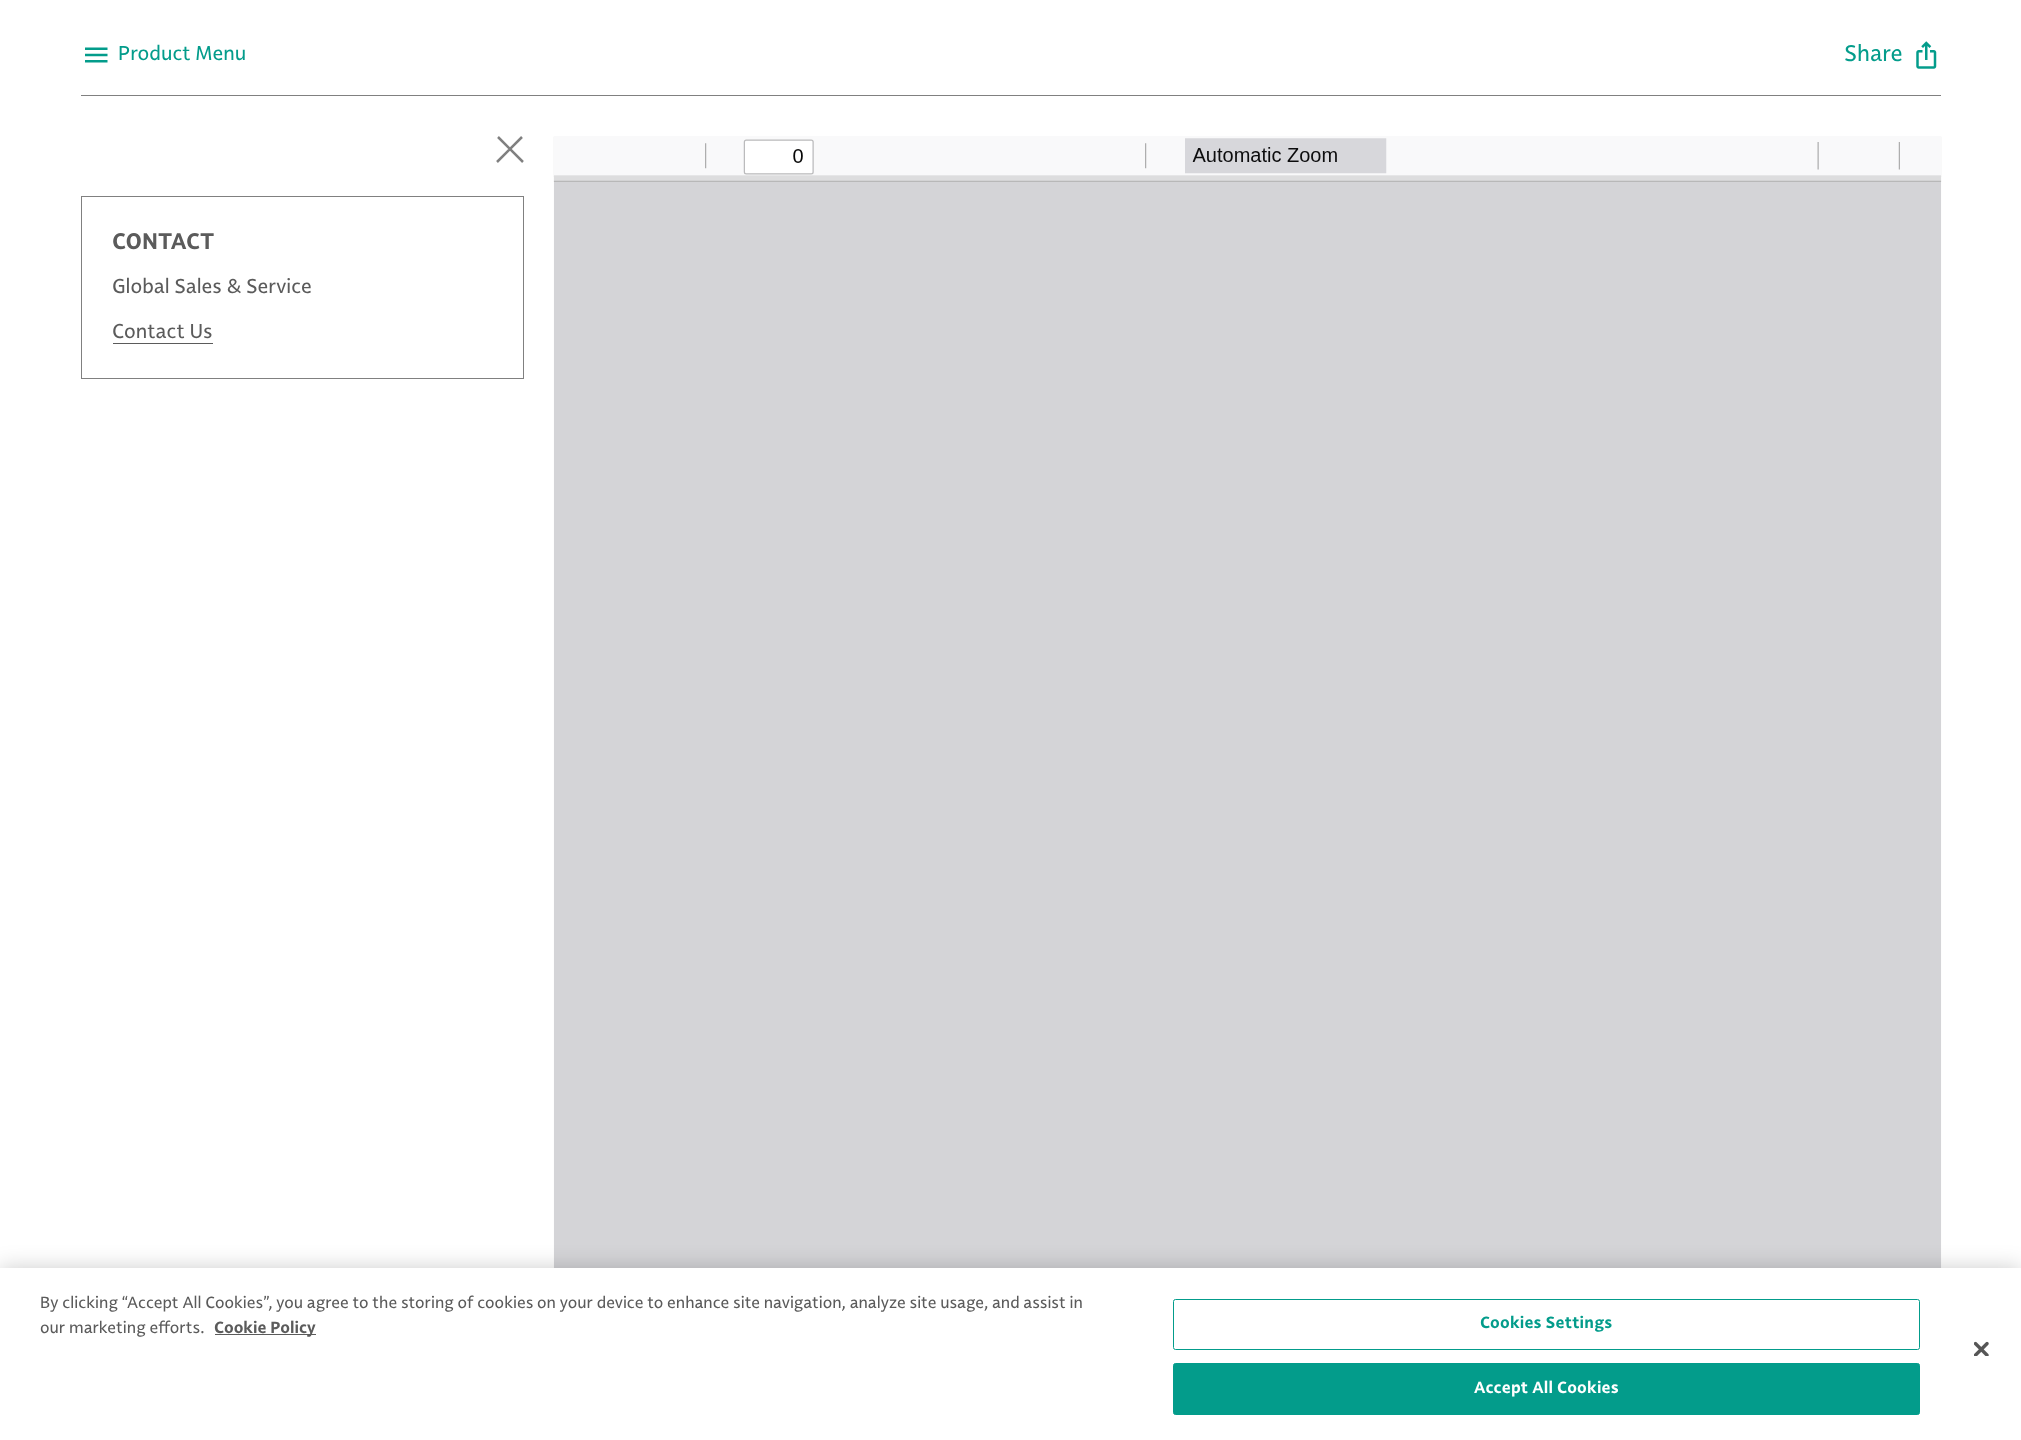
<svg xmlns="http://www.w3.org/2000/svg" width="2021" height="1440" viewBox="0 0 2021 1440">
  <rect width="100%" height="100%" fill="rgb(255,255,255)"/>
  <rect x="81" y="95" width="1860" height="1" fill="rgb(128,128,128)"/>
  <image x="85" y="47" width="23" height="16" href="pic1.png"/>
  <text x="118" y="60" font-family="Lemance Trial" font-size="20" fill="rgb(3,156,139)">Product Menu</text>
  <text x="1844" y="61" font-family="Lemance Trial" font-size="22.5" fill="rgb(3,156,139)">Share</text>
  <image x="1916" y="41" width="21" height="28" href="pic2.png"/>
  <path d="M522 137L497 162M498 137L523 162" fill="none" stroke="rgb(128,128,128)" stroke-width="2.5"/>
  <rect x="81.5" y="196.5" width="442" height="182" fill="none" stroke="rgb(128,128,128)"/>
  <text x="112" y="249" font-family="Lemance Trial" font-size="22.5" font-weight="bold" fill="rgb(91,91,91)">CONTACT</text>
  <g font-family="Lemance Trial" font-size="20" fill="rgb(91,91,91)">
    <text x="112" y="293">Global Sales &amp; Service</text>
    <text x="112" y="338">Contact Us</text>
  </g>
  <rect x="113" y="343" width="100" height="1" fill="rgb(91,91,91)"/>
  <image x="553" y="136" width="1389" height="1132" href="pic3.png"/>
  <rect x="0" y="1268" width="2021" height="172" fill="rgba(0,0,0,0.2)" filter="blur(11px)"/>
  <rect x="0" y="1268" width="2021" height="172" fill="rgb(255,255,255)"/>
  <g font-family="Lemance Trial" font-size="16.25" fill="rgb(91,91,91)">
    <text>
      <tspan x="40" y="1308">By clicking “Accept All Cookies”, you agree to the storing of cookies on your device to enhance site navigation, analyze site usage, and assist in</tspan>
      <tspan x="40" y="1333">our marketing efforts.</tspan>
    </text>
  </g>
  <rect x="215" y="1334" width="101" height="1" fill="rgb(91,91,91)"/>
  <text x="214" y="1333" font-family="Lemance Trial" font-size="16.25" font-weight="bold" fill="rgb(91,91,91)">Cookie Policy</text>
  <rect x="1173.5" y="1299.5" width="746" height="50" rx="2" fill="none" stroke="rgb(3,156,139)"/>
  <text x="1480" y="1328" font-family="Lemance Trial" font-size="16.25" font-weight="bold" letter-spacing="0.2" fill="rgb(3,156,139)">Cookies Settings</text>
  <rect x="1173.5" y="1363.5" width="746" height="51" rx="2" fill="rgb(3,156,139)" stroke="rgb(3,156,139)"/>
  <text x="1474" y="1393" font-family="Lemance Trial" font-size="16.25" font-weight="bold" letter-spacing="0.2" fill="rgb(255,255,255)">Accept All Cookies</text>
  <image x="1974" y="1341" width="15" height="15" href="pic4.png"/>
</svg>
